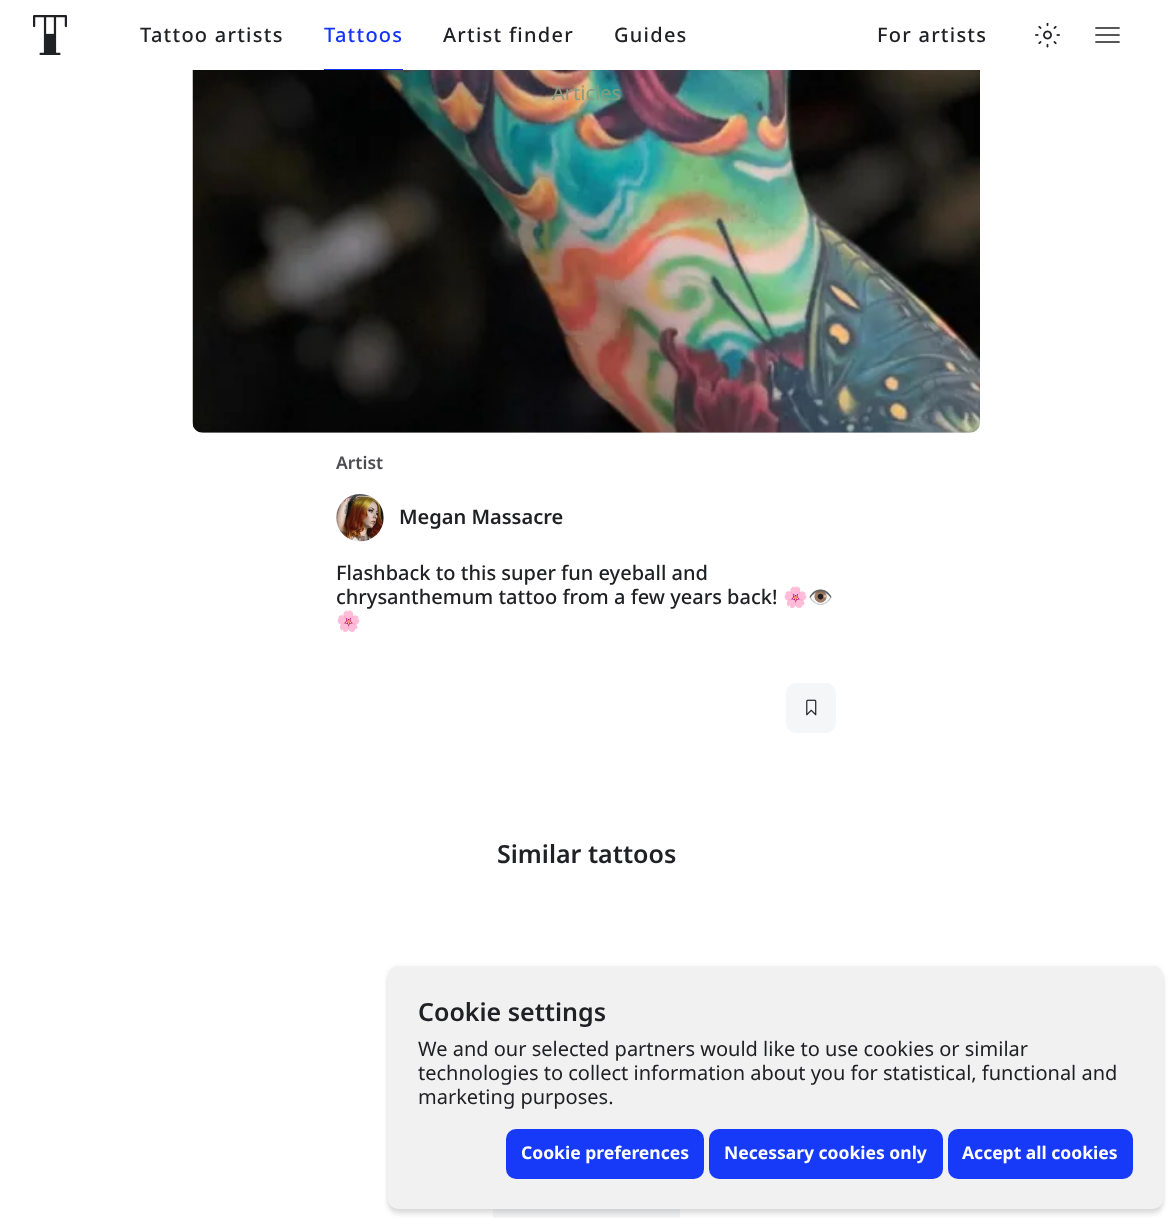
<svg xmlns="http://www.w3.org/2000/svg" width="1172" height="1218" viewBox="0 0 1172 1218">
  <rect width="100%" height="100%" fill="rgb(255,255,255)"/>
  <rect x="193" y="-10" width="787" height="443" rx="10" fill="rgb(235,235,235)"/>
  <rect x="193" y="0" width="787" height="70" fill="rgb(255,255,255)"/>
  <image x="33" y="15" width="34" height="40" href="pic1.png"/>
  <text x="140" y="42" font-family="Noto Sans" font-size="20" font-weight="500" letter-spacing="1.25" fill="rgb(32,33,37)">Tattoo artists</text>
  <text x="324" y="42" font-family="Noto Sans" font-size="20" font-weight="500" letter-spacing="1.25" fill="rgb(19,52,247)">Tattoos</text>
  <rect x="324" y="69" width="79" height="1" fill="rgb(19,52,247)"/>
  <g font-family="Noto Sans" font-size="20" font-weight="500" letter-spacing="1.25" fill="rgb(32,33,37)">
    <text x="443" y="42">Artist finder</text>
    <text x="614" y="42">Guides</text>
  </g>
  <image x="192" y="70" width="788" height="363" href="pic3.png"/>
  <text x="552" y="100" font-family="Noto Sans" font-size="20" fill="rgb(137,154,127)">Articles</text>
  <text x="877" y="42" font-family="Noto Sans" font-size="20" font-weight="500" letter-spacing="1.25" fill="rgb(32,33,37)">For artists</text>
  <image x="1035" y="23" width="25" height="25" href="pic2.png"/>
  <path d="M1096 42H1119M1096 35H1119M1096 28H1119" fill="none" stroke="rgb(32,33,37)" stroke-width="1.7" stroke-linecap="round" stroke-linejoin="round"/>
  <text x="336" y="469" font-family="Noto Sans" font-size="17.5" font-weight="600" fill="rgb(77,77,81)">Artist</text>
  <rect x="336" y="494" width="48" height="47" rx="23.5" fill="rgb(245,246,247)"/>
  <image x="336" y="494" width="48" height="48" href="pic4.png"/>
  <text x="399" y="524" font-family="Noto Sans" font-size="20" font-weight="600" fill="rgb(32,33,37)">Megan Massacre</text>
  <g font-family="Noto Sans" font-size="20" font-weight="500" fill="rgb(32,33,37)">
    <text>
      <tspan x="336" y="580">Flashback to this super fun eyeball and</tspan>
      <tspan x="336" y="604">chrysanthemum tattoo from a few years back!</tspan>
    </text>
  </g>
  <g font-family="Noto Color Emoji" font-size="20" fill="rgb(32,33,37)">
    <text x="783" y="604">🌸👁</text>
    <text x="336" y="628">🌸</text>
  </g>
  <rect x="786" y="683" width="50" height="50" rx="10" fill="rgb(245,246,247)"/>
  <image x="806" y="699" width="11" height="17" href="pic5.png"/>
  <text x="497" y="863" font-family="Noto Sans" font-size="25" font-weight="600" fill="rgb(32,33,37)">Similar tattoos</text>
  <rect x="493" y="1209" width="187" height="9" fill="rgb(245,246,247)"/>
  <rect x="388" y="966" width="775" height="243" rx="10" fill="rgba(0,0,0,0.06)" filter="blur(2.5px)"/>
  <rect x="388" y="971" width="775" height="243" rx="10" fill="rgba(0,0,0,0.12)" filter="blur(2.5px)"/>
  <rect x="388" y="966" width="775" height="243" rx="10" fill="rgb(241,241,241)"/>
  <text x="418" y="1021" font-family="Noto Sans" font-size="25" font-weight="600" fill="rgb(32,33,37)">Cookie settings</text>
  <g font-family="Noto Sans" font-size="20" fill="rgb(32,33,37)">
    <text>
      <tspan x="418" y="1056">We and our selected partners would like to use cookies or similar</tspan>
      <tspan x="418" y="1080">technologies to collect information about you for statistical, functional and</tspan>
      <tspan x="418" y="1104">marketing purposes.</tspan>
    </text>
  </g>
  <rect x="506" y="1129" width="198" height="50" rx="10" fill="rgb(23,58,248)"/>
  <text x="521" y="1159" font-family="Noto Sans" font-size="17.5" font-weight="bold" fill="rgb(255,255,255)">Cookie preferences</text>
  <rect x="709" y="1129" width="234" height="50" rx="10" fill="rgb(23,58,248)"/>
  <text x="724" y="1159" font-family="Noto Sans" font-size="17.5" font-weight="bold" fill="rgb(255,255,255)">Necessary cookies only</text>
  <rect x="948" y="1129" width="185" height="50" rx="10" fill="rgb(23,58,248)"/>
  <text x="962" y="1159" font-family="Noto Sans" font-size="17.5" font-weight="bold" fill="rgb(255,255,255)">Accept all cookies</text>
</svg>
